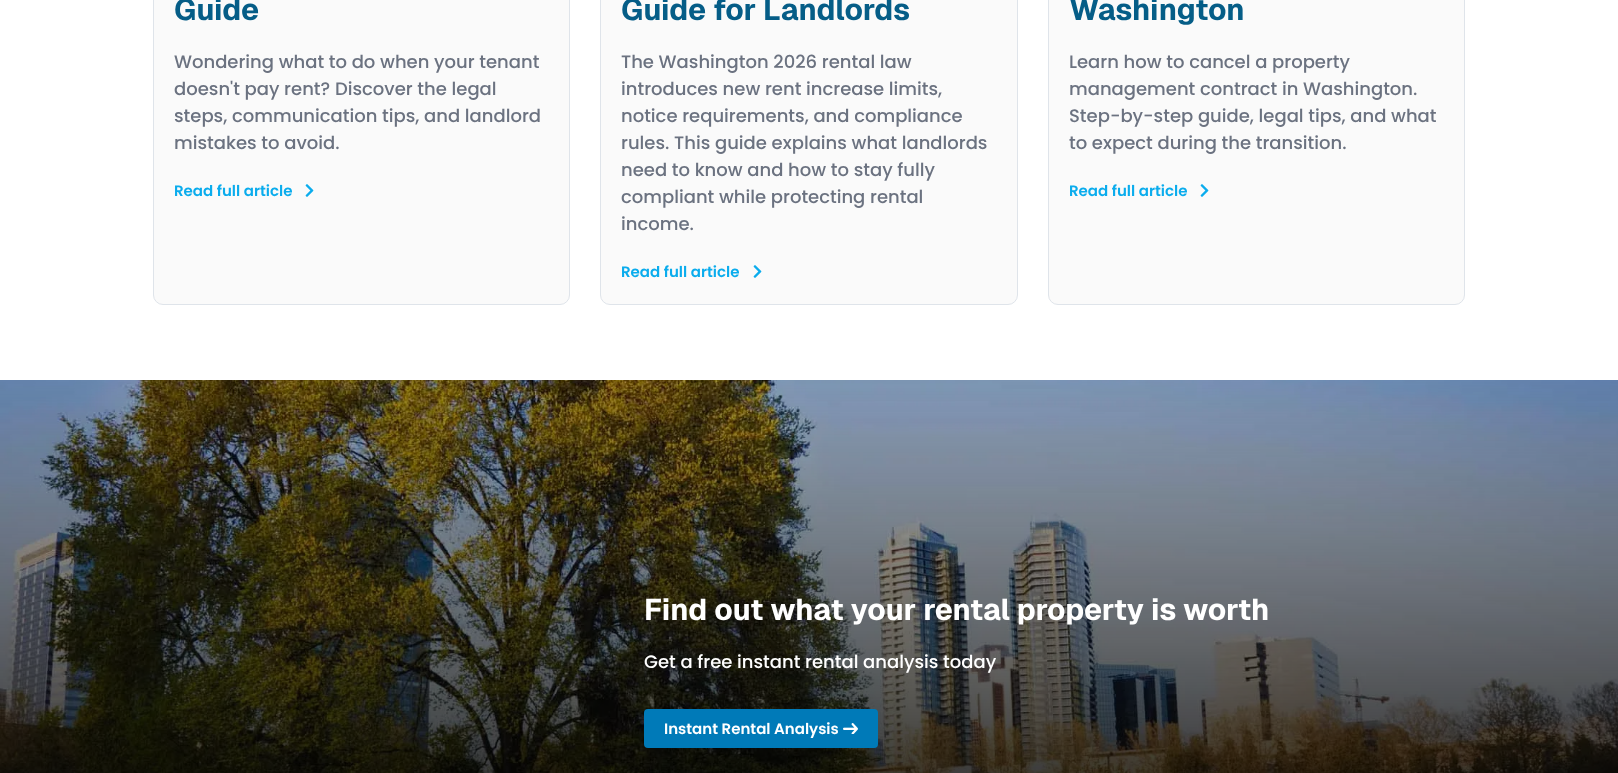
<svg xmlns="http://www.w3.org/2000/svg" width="1618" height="773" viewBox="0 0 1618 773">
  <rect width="100%" height="100%" fill="rgb(255,255,255)"/>
  <rect x="153.5" y="-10.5" width="416" height="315" rx="9.5" fill="rgb(250,250,250)" stroke="rgb(223,228,234)"/>
  <text x="174" y="20" font-family="Geist" font-size="30" font-weight="bold" fill="rgb(5,93,135)">Guide</text>
  <g font-family="Poppins" font-size="18" font-weight="500" fill="rgb(107,114,128)">
    <text>
      <tspan x="174" y="68">Wondering what to do when your tenant</tspan>
      <tspan x="174" y="95">doesn't pay rent? Discover the legal</tspan>
      <tspan x="174" y="122">steps, communication tips, and landlord</tspan>
      <tspan x="174" y="149">mistakes to avoid.</tspan>
    </text>
  </g>
  <text x="174" y="196" font-family="Poppins" font-size="15" font-weight="600" fill="rgb(10,172,237)">Read full article</text>
  <image x="305" y="184" width="9" height="13" href="pic1.png"/>
  <rect x="600.5" y="-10.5" width="417" height="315" rx="9.5" fill="rgb(250,250,250)" stroke="rgb(223,228,234)"/>
  <text x="621" y="20" font-family="Geist" font-size="30" font-weight="bold" fill="rgb(5,93,135)">Guide for Landlords</text>
  <g font-family="Poppins" font-size="18" font-weight="500" fill="rgb(107,114,128)">
    <text>
      <tspan x="621" y="68">The Washington 2026 rental law</tspan>
      <tspan x="621" y="95">introduces new rent increase limits,</tspan>
      <tspan x="621" y="122">notice requirements, and compliance</tspan>
      <tspan x="621" y="149">rules. This guide explains what landlords</tspan>
      <tspan x="621" y="176">need to know and how to stay fully</tspan>
      <tspan x="621" y="203">compliant while protecting rental</tspan>
      <tspan x="621" y="230">income.</tspan>
    </text>
  </g>
  <text x="621" y="277" font-family="Poppins" font-size="15" font-weight="600" fill="rgb(10,172,237)">Read full article</text>
  <image x="753" y="265" width="9" height="13" href="pic1.png"/>
  <rect x="1048.5" y="-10.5" width="416" height="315" rx="9.5" fill="rgb(250,250,250)" stroke="rgb(223,228,234)"/>
  <text x="1069" y="20" font-family="Geist" font-size="30" font-weight="bold" fill="rgb(5,93,135)">Washington</text>
  <g font-family="Poppins" font-size="18" font-weight="500" fill="rgb(107,114,128)">
    <text>
      <tspan x="1069" y="68">Learn how to cancel a property</tspan>
      <tspan x="1069" y="95">management contract in Washington.</tspan>
      <tspan x="1069" y="122">Step-by-step guide, legal tips, and what</tspan>
      <tspan x="1069" y="149">to expect during the transition.</tspan>
    </text>
  </g>
  <text x="1069" y="196" font-family="Poppins" font-size="15" font-weight="600" fill="rgb(10,172,237)">Read full article</text>
  <image x="1200" y="184" width="9" height="13" href="pic1.png"/>
  <image x="0" y="380" width="1618" height="393" href="pic2.png"/>
  <text x="644" y="620" font-family="Geist" font-size="30" font-weight="bold" fill="rgb(255,255,255)">Find out what your rental property is worth</text>
  <text x="644" y="668" font-family="Poppins" font-size="18" font-weight="500" fill="rgb(255,255,255)">Get a free instant rental analysis today</text>
  <rect x="644" y="709" width="234" height="39" rx="4" fill="rgb(0,122,184)"/>
  <text x="664" y="734" font-family="Poppins" font-size="15" font-weight="600" fill="rgb(255,255,255)">Instant Rental Analysis</text>
  <image x="843" y="723" width="15" height="11" href="pic3.png"/>
</svg>
